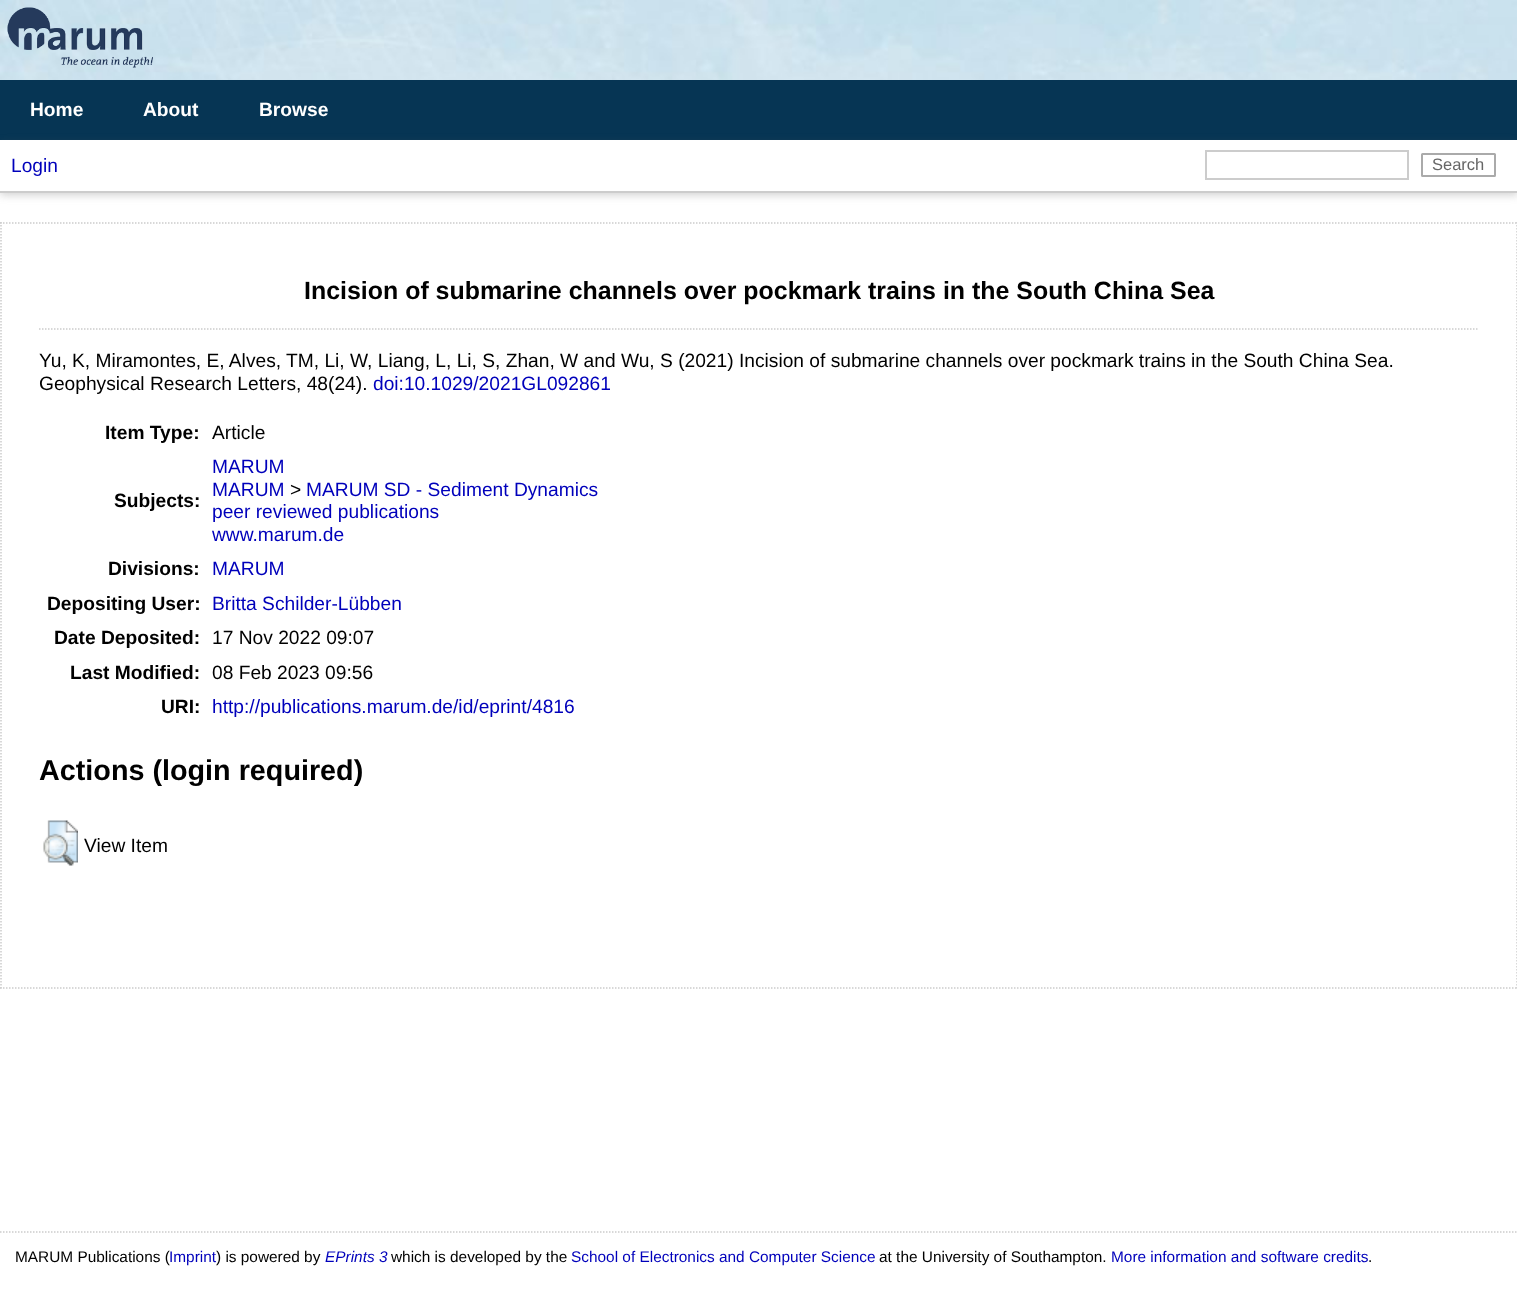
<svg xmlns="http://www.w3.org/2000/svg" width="1517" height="1298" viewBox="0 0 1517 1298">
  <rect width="100%" height="100%" fill="rgb(255,255,255)"/>
  <image x="0" y="0" width="1517" height="80" href="pic1.png"/>
  <image x="7" y="7" width="146" height="61" href="pic2.png"/>
  <rect x="0" y="80" width="1517" height="60" fill="rgb(6,53,84)"/>
  <g font-family="Liberation Sans" font-size="19.2" font-weight="bold" fill="rgb(255,255,255)">
    <text x="30" y="116">Home</text>
    <text x="143" y="116">About</text>
    <text x="259" y="116">Browse</text>
  </g>
  <rect x="0" y="143" width="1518" height="52" fill="rgba(100,100,100,0.3)" filter="blur(4.5px)"/>
  <rect x="0" y="140" width="1517" height="51" fill="rgb(255,255,255)"/>
  <rect x="0" y="191" width="1517" height="2" fill="rgb(204,204,204)"/>
  <text x="11" y="172" font-family="Liberation Sans" font-size="19.2" fill="rgb(0,0,187)">Login</text>
  <rect x="1206" y="151" width="202" height="28" fill="none" stroke="rgb(204,204,204)" stroke-width="2"/>
  <rect x="1422" y="154" width="73" height="22" rx="0.5" fill="none" stroke="rgb(170,170,170)" stroke-width="2"/>
  <text x="1432" y="170" font-family="Liberation Sans" font-size="16.5" fill="rgb(102,102,102)">Search</text>
  <path d="M0 223H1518" fill="none" stroke="rgb(204,204,204)" stroke-width="1.5" stroke-dasharray="1.5 1.5"/>
  <path d="M1517 222V988.5" fill="none" stroke="rgb(204,204,204)" stroke-width="1.5" stroke-dasharray="1.5 1.5"/>
  <path d="M0 988H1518" fill="none" stroke="rgb(204,204,204)" stroke-width="1.5" stroke-dasharray="1.5 1.5"/>
  <path d="M1 222V988.5" fill="none" stroke="rgb(204,204,204)" stroke-width="1.5" stroke-dasharray="1.5 1.5"/>
  <path d="M39 329H1479" fill="none" stroke="rgb(204,204,204)" stroke-width="1.5" stroke-dasharray="1.5 1.5"/>
  <text x="304" y="299" font-family="Liberation Sans" font-size="24.95" font-weight="bold" fill="rgb(0,0,0)">Incision of submarine channels over pockmark trains in the South China Sea</text>
  <g font-family="Liberation Sans" font-size="19.2" fill="rgb(0,0,0)">
    <text>
      <tspan x="39" y="367">Yu, K, Miramontes, E, Alves, TM, Li, W, Liang, L, Li, S, Zhan, W and Wu, S (2021) Incision of submarine channels over pockmark trains in the South China Sea.</tspan>
      <tspan x="39" y="390">Geophysical Research Letters, 48(24).</tspan>
    </text>
  </g>
  <text x="373" y="390" font-family="Liberation Sans" font-size="19.2" fill="rgb(0,0,187)">doi:10.1029/2021GL092861</text>
  <text x="105" y="439" font-family="Liberation Sans" font-size="19.2" font-weight="bold" fill="rgb(0,0,0)">Item Type:</text>
  <text x="212" y="439" font-family="Liberation Sans" font-size="19.2" fill="rgb(0,0,0)">Article</text>
  <text x="114" y="507" font-family="Liberation Sans" font-size="19.2" font-weight="bold" fill="rgb(0,0,0)">Subjects:</text>
  <g font-family="Liberation Sans" font-size="19.2" fill="rgb(0,0,187)">
    <text>
      <tspan x="212" y="473">MARUM</tspan>
      <tspan x="212" y="496">MARUM</tspan>
    </text>
  </g>
  <text x="290" y="496" font-family="Liberation Sans" font-size="19.2" fill="rgb(0,0,0)">&gt;</text>
  <g font-family="Liberation Sans" font-size="19.2" fill="rgb(0,0,187)">
    <text x="306" y="496">MARUM SD - Sediment Dynamics</text>
    <text>
      <tspan x="212" y="518">peer reviewed publications</tspan>
      <tspan x="212" y="541">www.marum.de</tspan>
    </text>
  </g>
  <text x="108" y="575" font-family="Liberation Sans" font-size="19.2" font-weight="bold" fill="rgb(0,0,0)">Divisions:</text>
  <text x="212" y="575" font-family="Liberation Sans" font-size="19.2" fill="rgb(0,0,187)">MARUM</text>
  <text x="47" y="610" font-family="Liberation Sans" font-size="19.2" font-weight="bold" fill="rgb(0,0,0)">Depositing User:</text>
  <text x="212" y="610" font-family="Liberation Sans" font-size="19.2" fill="rgb(0,0,187)">Britta Schilder-Lübben</text>
  <text x="54" y="644" font-family="Liberation Sans" font-size="19.2" font-weight="bold" fill="rgb(0,0,0)">Date Deposited:</text>
  <text x="212" y="644" font-family="Liberation Sans" font-size="19.2" fill="rgb(0,0,0)">17 Nov 2022 09:07</text>
  <text x="70" y="679" font-family="Liberation Sans" font-size="19.2" font-weight="bold" fill="rgb(0,0,0)">Last Modified:</text>
  <text x="212" y="679" font-family="Liberation Sans" font-size="19.2" fill="rgb(0,0,0)">08 Feb 2023 09:56</text>
  <text x="161" y="713" font-family="Liberation Sans" font-size="19.2" font-weight="bold" fill="rgb(0,0,0)">URI:</text>
  <text x="212" y="713" font-family="Liberation Sans" font-size="19.2" fill="rgb(0,0,187)">http://publications.marum.de/id/eprint/4816</text>
  <text x="39" y="780" font-family="Liberation Sans" font-size="28.75" font-weight="bold" fill="rgb(0,0,0)">Actions (login required)</text>
  <image x="43" y="820" width="35" height="46" href="pic3.png"/>
  <text x="84" y="852" font-family="Liberation Sans" font-size="19.2" fill="rgb(0,0,0)">View Item</text>
  <path d="M0 1232H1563" fill="none" stroke="rgb(204,204,204)" stroke-width="1.5" stroke-dasharray="1.5 1.5"/>
  <text x="15" y="1262" font-family="Liberation Sans" font-size="15.4" fill="rgb(0,0,0)">MARUM Publications (</text>
  <text x="169" y="1262" font-family="Liberation Sans" font-size="15.4" fill="rgb(0,0,187)">Imprint</text>
  <text x="216" y="1262" font-family="Liberation Sans" font-size="15.4" fill="rgb(0,0,0)">) is powered by</text>
  <text x="325" y="1262" font-family="Liberation Sans" font-size="15.4" font-style="italic" fill="rgb(0,0,187)">EPrints 3</text>
  <text x="391" y="1262" font-family="Liberation Sans" font-size="15.4" fill="rgb(0,0,0)">which is developed by the</text>
  <text x="571" y="1262" font-family="Liberation Sans" font-size="15.4" fill="rgb(0,0,187)">School of Electronics and Computer Science</text>
  <text x="879" y="1262" font-family="Liberation Sans" font-size="15.4" fill="rgb(0,0,0)">at the University of Southampton.</text>
  <text x="1111" y="1262" font-family="Liberation Sans" font-size="15.4" fill="rgb(0,0,187)">More information and software credits</text>
  <text x="1368" y="1262" font-family="Liberation Sans" font-size="15.4" fill="rgb(0,0,0)">.</text>
</svg>
